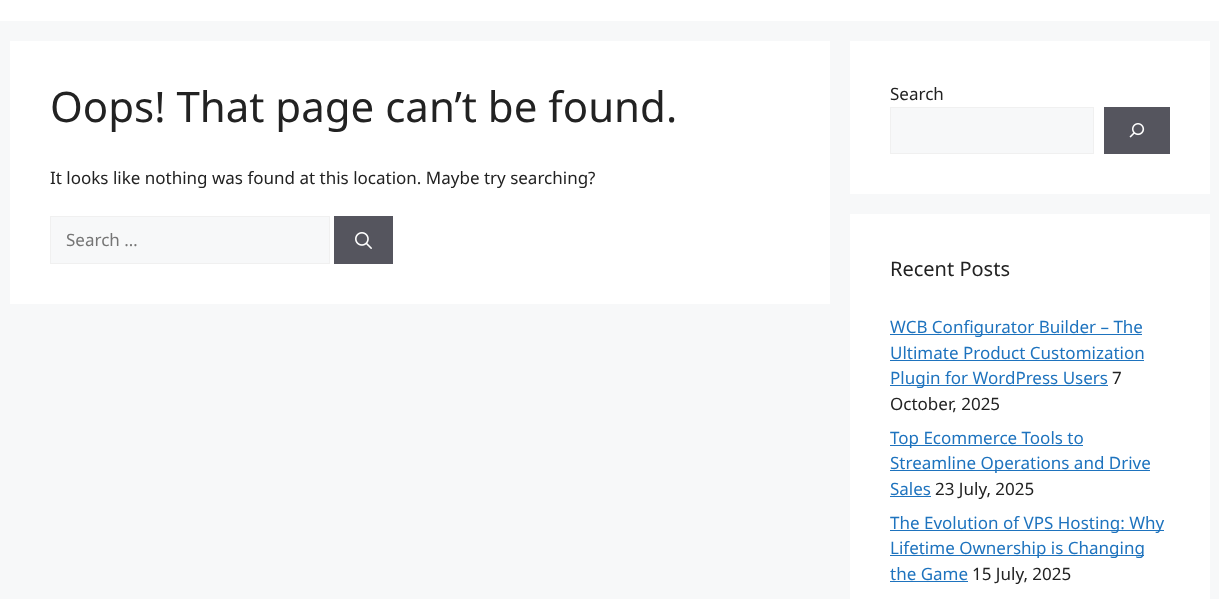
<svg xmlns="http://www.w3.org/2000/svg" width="1219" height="599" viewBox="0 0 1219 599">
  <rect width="100%" height="100%" fill="rgb(247,248,249)"/>
  <rect x="0" y="0" width="1219" height="21" fill="rgb(255,255,255)"/>
  <rect x="10" y="41" width="820" height="263" fill="rgb(255,255,255)"/>
  <text x="50" y="122" font-family="Noto Sans" font-size="42" fill="rgb(34,34,34)">Oops! That page can’t be found.</text>
  <text x="50" y="184" font-family="Noto Sans" font-size="17" fill="rgb(34,34,34)">It looks like nothing was found at this location. Maybe try searching?</text>
  <rect x="50.5" y="216.5" width="279" height="47" fill="rgb(247,248,249)" stroke="rgb(240,240,240)"/>
  <text x="66" y="246" font-family="Noto Sans" font-size="17" fill="rgb(117,117,117)">Search …</text>
  <rect x="334" y="216" width="59" height="48" fill="rgb(85,85,94)"/>
  <image x="355" y="232" width="17" height="17" href="pic1.png"/>
  <rect x="850" y="41" width="360" height="153" fill="rgb(255,255,255)"/>
  <text x="890" y="100" font-family="Noto Sans" font-size="17" fill="rgb(34,34,34)">Search</text>
  <rect x="890.5" y="107.5" width="203" height="46" fill="rgb(247,248,249)" stroke="rgb(240,240,240)"/>
  <rect x="1104" y="107" width="66" height="47" fill="rgb(85,85,94)"/>
  <image x="1129" y="123" width="16" height="15" href="pic2.png"/>
  <rect x="850" y="214" width="360" height="385" fill="rgb(255,255,255)"/>
  <text x="890" y="276" font-family="Noto Sans" font-size="20" fill="rgb(34,34,34)">Recent Posts</text>
  <rect x="890" y="334" width="252" height="1" fill="rgb(30,115,190)"/>
  <g font-family="Noto Sans" font-size="17" fill="rgb(30,115,190)">
    <text>
      <tspan x="890" y="333">WCB Configurator Builder – The</tspan>
      <tspan x="890" y="359">Ultimate Product Customization</tspan>
    </text>
  </g>
  <rect x="890" y="360" width="254" height="1" fill="rgb(30,115,190)"/>
  <rect x="890" y="385" width="218" height="1" fill="rgb(30,115,190)"/>
  <text x="890" y="384" font-family="Noto Sans" font-size="17" fill="rgb(30,115,190)">Plugin for WordPress Users</text>
  <g font-family="Noto Sans" font-size="17" fill="rgb(34,34,34)">
    <text x="1112" y="384">7</text>
    <text x="890" y="410">October, 2025</text>
  </g>
  <rect x="890" y="445" width="193" height="1" fill="rgb(30,115,190)"/>
  <text x="890" y="444" font-family="Noto Sans" font-size="17" fill="rgb(30,115,190)">Top Ecommerce Tools to</text>
  <rect x="890" y="470" width="260" height="1" fill="rgb(30,115,190)"/>
  <g font-family="Noto Sans" font-size="17" fill="rgb(30,115,190)">
    <text>
      <tspan x="890" y="469">Streamline Operations and Drive</tspan>
      <tspan x="890" y="495">Sales</tspan>
    </text>
  </g>
  <rect x="890" y="496" width="41" height="1" fill="rgb(30,115,190)"/>
  <text x="935" y="495" font-family="Noto Sans" font-size="17" fill="rgb(34,34,34)">23 July, 2025</text>
  <rect x="890" y="530" width="274" height="1" fill="rgb(30,115,190)"/>
  <text x="890" y="529" font-family="Noto Sans" font-size="17" fill="rgb(30,115,190)">The Evolution of VPS Hosting: Why</text>
  <rect x="890" y="555" width="254" height="1" fill="rgb(30,115,190)"/>
  <g font-family="Noto Sans" font-size="17" fill="rgb(30,115,190)">
    <text>
      <tspan x="890" y="554">Lifetime Ownership is Changing</tspan>
      <tspan x="890" y="580">the Game</tspan>
    </text>
  </g>
  <rect x="890" y="581" width="78" height="1" fill="rgb(30,115,190)"/>
  <text x="972" y="580" font-family="Noto Sans" font-size="17" fill="rgb(34,34,34)">15 July, 2025</text>
</svg>
